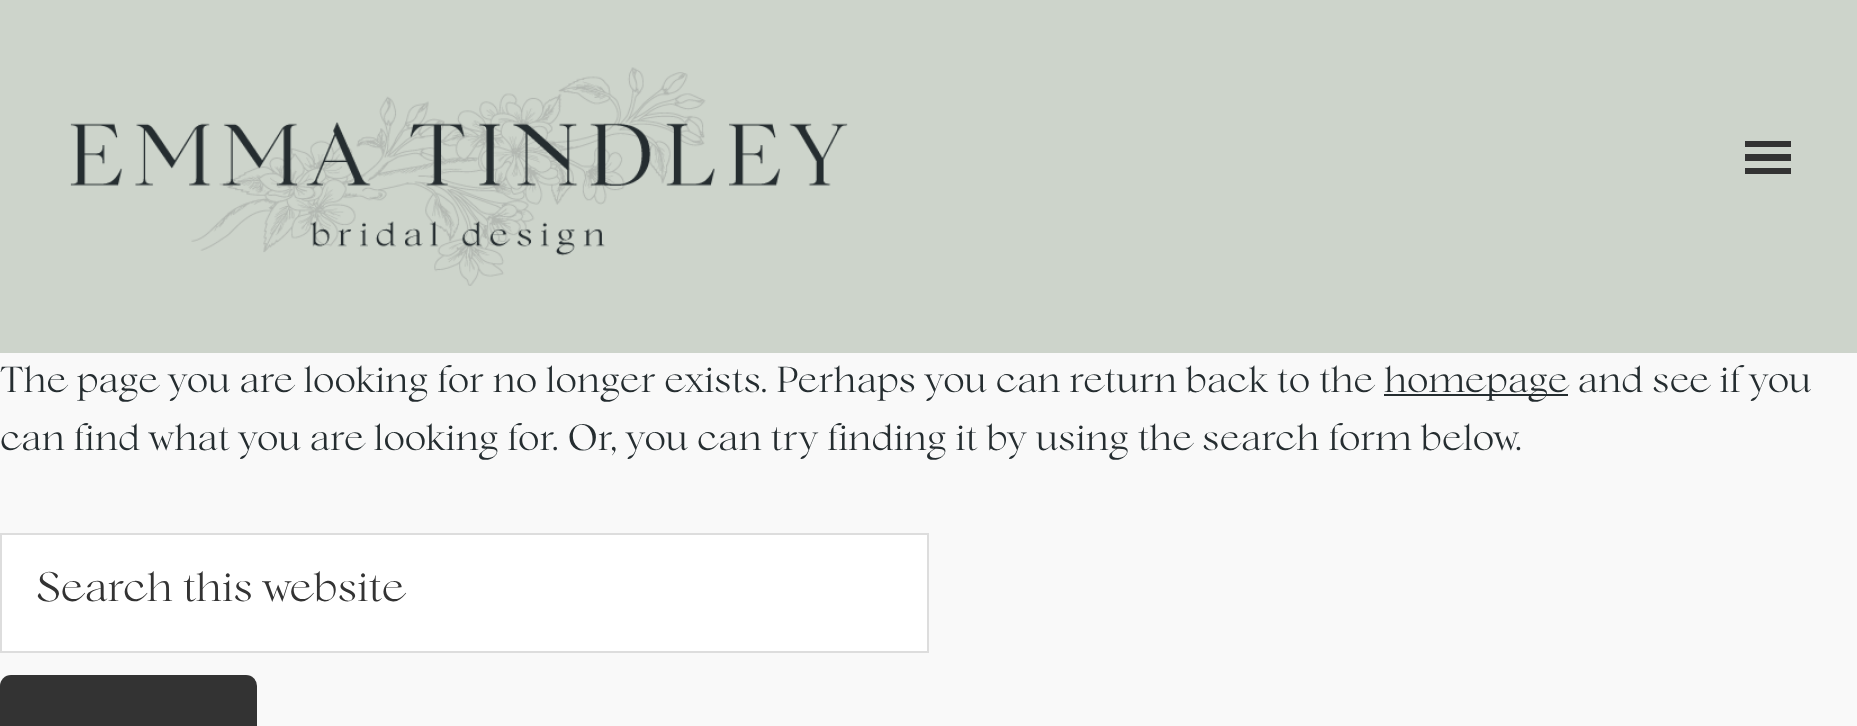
<svg xmlns="http://www.w3.org/2000/svg" width="1857" height="726" viewBox="0 0 1857 726">
  <rect width="100%" height="100%" fill="rgb(249,249,249)"/>
  <rect x="0" y="0" width="1857" height="353" fill="rgb(205,212,203)"/>
  <image x="70" y="67" width="778" height="219" href="pic1.png"/>
  <path d="M1745 174V168H1791V174ZM1745 161V154H1791V161ZM1745 141H1791V147H1745Z" fill="rgb(51,51,51)" fill-rule="evenodd"/>
  <text x="0" y="392" font-family="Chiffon" font-size="36" fill="rgb(37,45,48)">The page you are looking for no longer exists. Perhaps you can return back to the</text>
  <rect x="1384" y="394" width="184" height="2" fill="rgb(37,45,48)"/>
  <g font-family="Chiffon" font-size="36" fill="rgb(37,45,48)">
    <text x="1384" y="392">homepage and see if you</text>
    <text x="0" y="450">can find what you are looking for. Or, you can try finding it by using the search form below.</text>
  </g>
  <rect x="1" y="534" width="927" height="118" fill="rgb(255,255,255)" stroke="rgb(221,221,221)" stroke-width="2"/>
  <text x="36" y="601" font-family="Chiffon" font-size="40.5" fill="rgb(51,51,51)">Search this website</text>
  <rect x="0" y="675" width="257" height="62" rx="11" fill="rgb(51,51,51)"/>
</svg>
